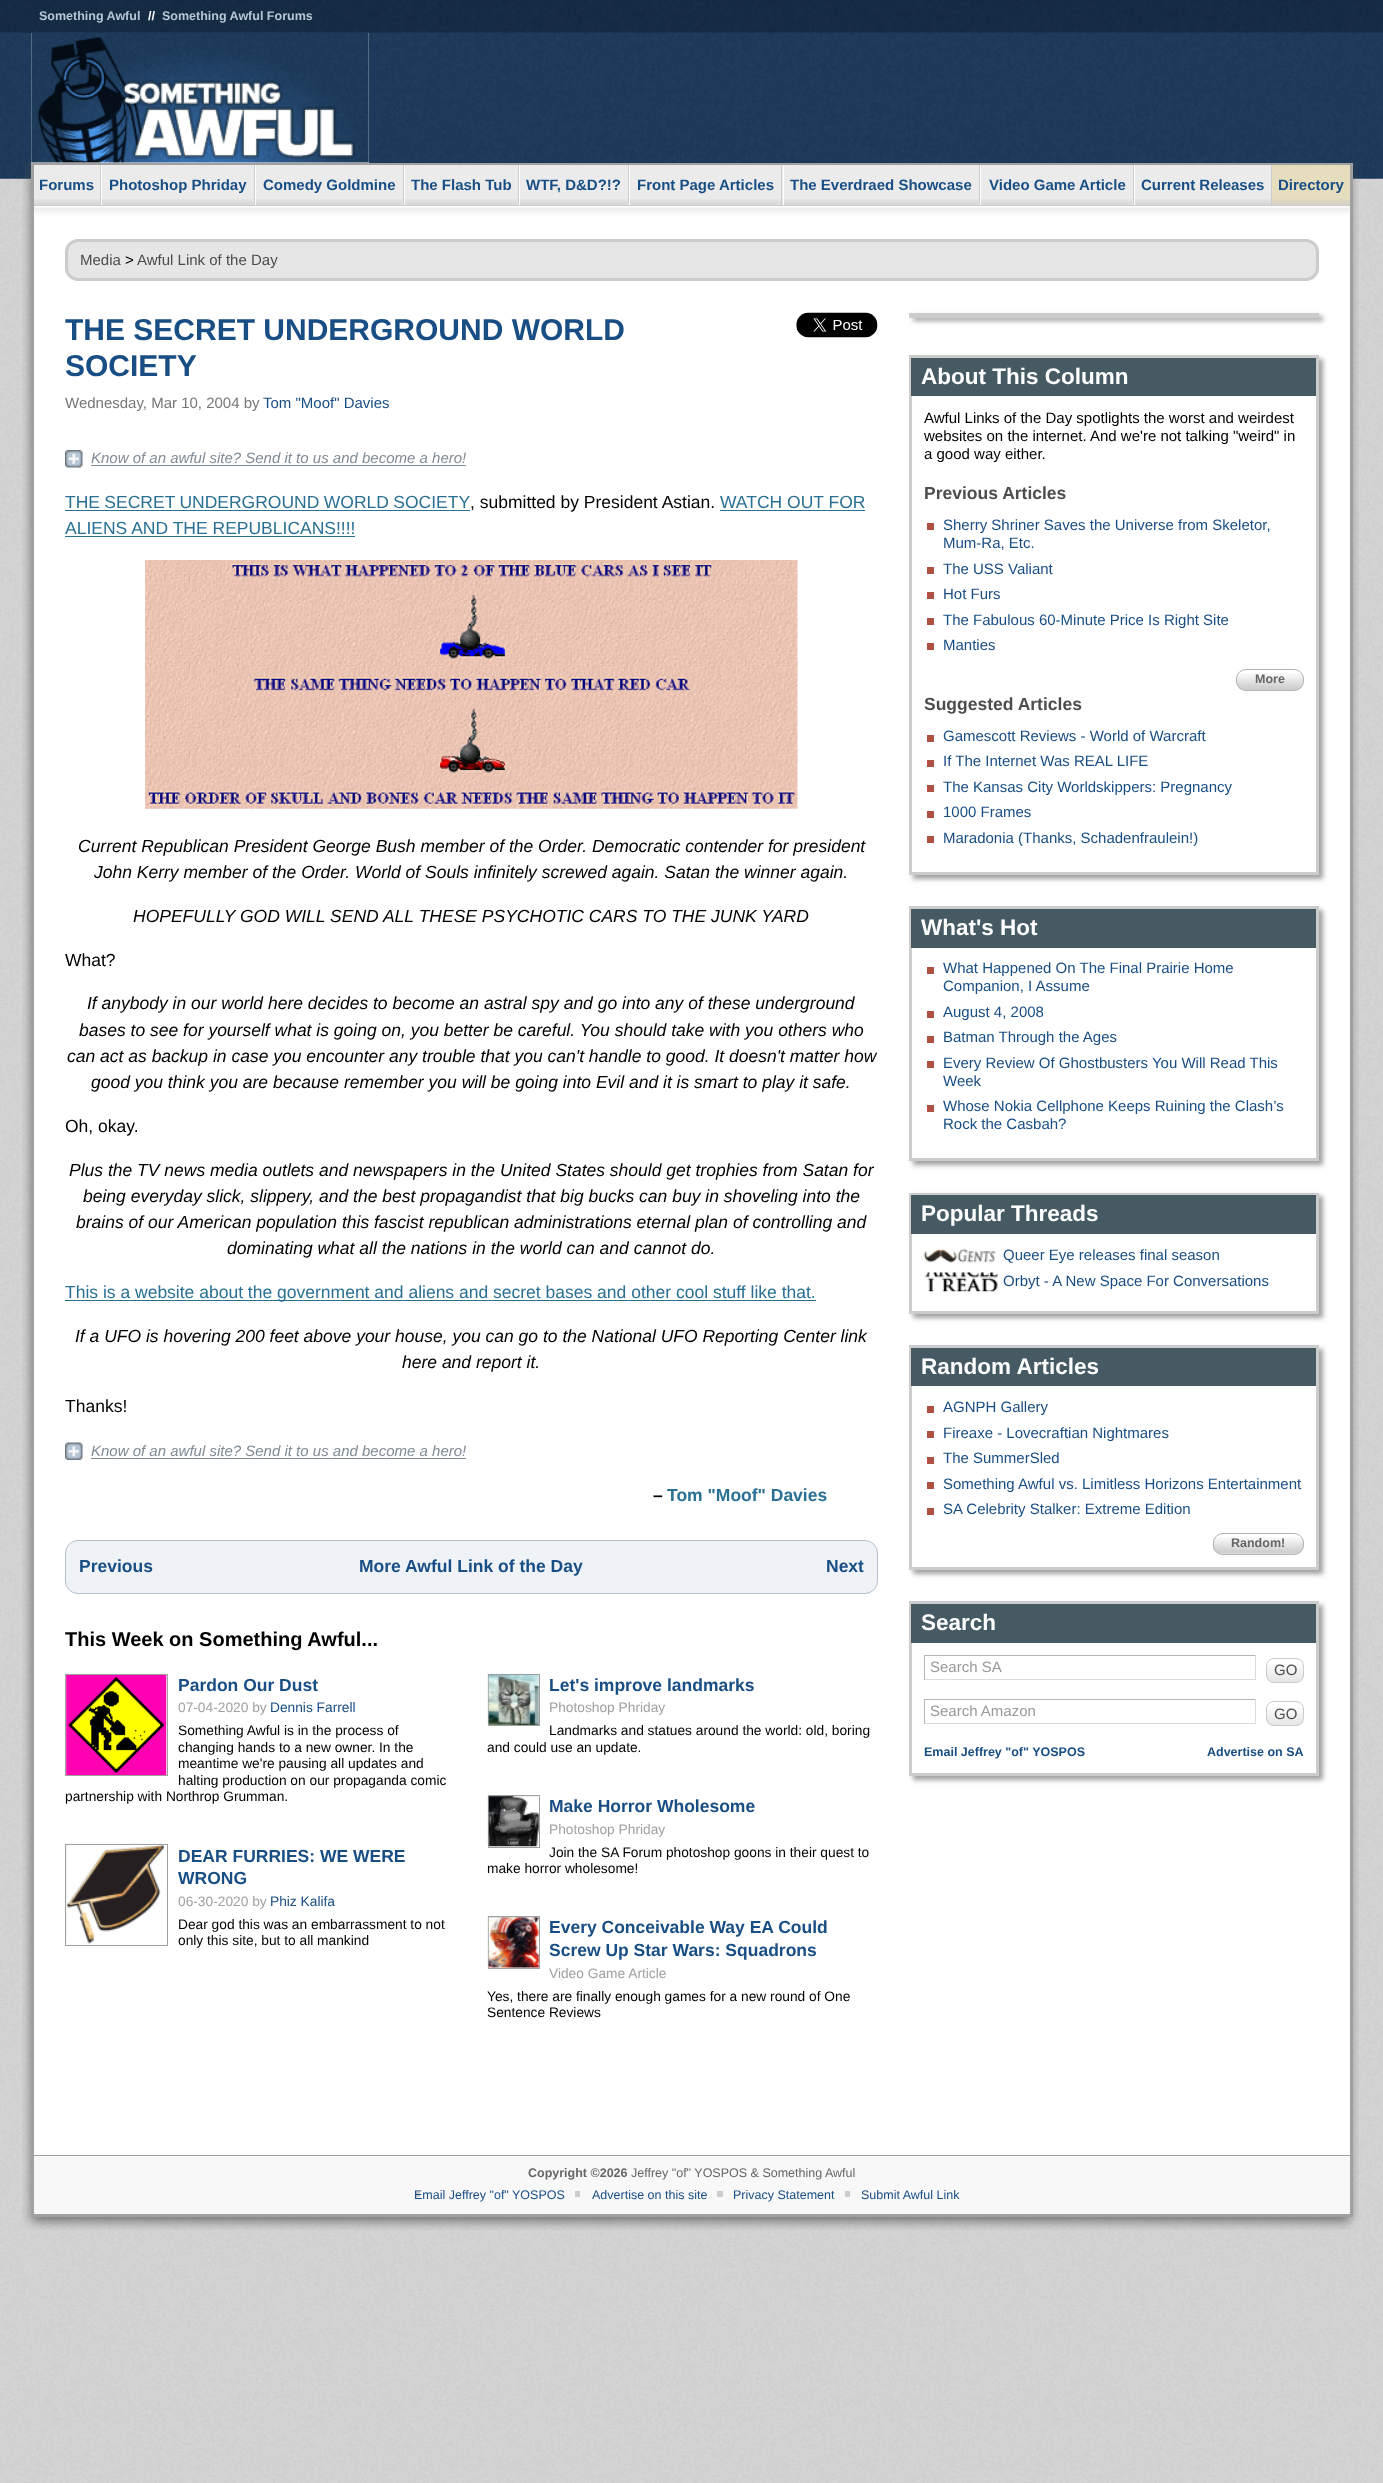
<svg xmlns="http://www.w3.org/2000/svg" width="1383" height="2483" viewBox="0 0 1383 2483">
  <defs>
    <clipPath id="clip1"><path d="M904 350H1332V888H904ZM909 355H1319V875H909Z" clip-rule="evenodd"/></clipPath>
    <clipPath id="clip2"><path d="M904 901H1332V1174H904ZM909 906H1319V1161H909Z" clip-rule="evenodd"/></clipPath>
    <clipPath id="clip3"><path d="M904 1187H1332V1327H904ZM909 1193H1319V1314H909Z" clip-rule="evenodd"/></clipPath>
    <clipPath id="clip4"><path d="M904 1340H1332V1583H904ZM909 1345H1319V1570H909Z" clip-rule="evenodd"/></clipPath>
    <clipPath id="clip5"><path d="M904 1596H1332V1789H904ZM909 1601H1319V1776H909Z" clip-rule="evenodd"/></clipPath>
  </defs>
  <rect width="100%" height="100%" fill="rgb(255,255,255)"/>
  <image x="0" y="178" width="1383" height="2305" href="pic1.png"/>
  <image x="0" y="0" width="1383" height="179" href="pic2.png"/>
  <text x="39" y="20" font-family="Liberation Sans" font-size="12.5" font-weight="bold" fill="rgb(183,199,214)">Something Awful</text>
  <text x="148" y="20" font-family="Liberation Sans" font-size="12.5" font-weight="bold" fill="rgb(255,255,255)">//</text>
  <text x="162" y="20" font-family="Liberation Sans" font-size="12.5" font-weight="bold" fill="rgb(183,199,214)">Something Awful Forums</text>
  <image x="22" y="162" width="1337" height="1993" href="pic4.png"/>
  <rect x="31" y="33" width="338" height="130" fill="rgb(255,255,255)"/>
  <image x="31" y="32" width="338" height="131" href="pic3.png"/>
  <rect x="34" y="206" width="1316" height="1949" fill="rgb(255,255,255)"/>
  <rect x="31" y="163" width="1322" height="2" fill="rgb(160,160,160)"/>
  <rect x="1350" y="163" width="3" height="1992" fill="rgb(160,160,160)"/>
  <rect x="31" y="163" width="3" height="1992" fill="rgb(160,160,160)"/>
  <rect x="34" y="165" width="1237" height="40" fill="rgb(235,235,235)"/>
  <rect x="34" y="205" width="1316" height="1" fill="rgb(204,204,204)"/>
  <image x="33" y="199" width="67" height="6" href="pic5.png"/>
  <text x="39" y="190" font-family="Liberation Sans" font-size="15" font-weight="bold" fill="rgb(25,78,132)">Forums</text>
  <rect x="100" y="165" width="1" height="40" fill="rgb(204,204,204)"/>
  <image x="102" y="199" width="152" height="6" href="pic6.png"/>
  <rect x="101" y="165" width="1" height="40" fill="rgb(255,255,255)"/>
  <text x="109" y="190" font-family="Liberation Sans" font-size="15" font-weight="bold" fill="rgb(25,78,132)">Photoshop Phriday</text>
  <rect x="254" y="165" width="1" height="40" fill="rgb(204,204,204)"/>
  <image x="256" y="199" width="147" height="6" href="pic7.png"/>
  <rect x="255" y="165" width="1" height="40" fill="rgb(255,255,255)"/>
  <text x="263" y="190" font-family="Liberation Sans" font-size="15" font-weight="bold" fill="rgb(25,78,132)">Comedy Goldmine</text>
  <rect x="403" y="165" width="1" height="40" fill="rgb(204,204,204)"/>
  <image x="405" y="199" width="113" height="6" href="pic8.png"/>
  <rect x="404" y="165" width="1" height="40" fill="rgb(255,255,255)"/>
  <text x="411" y="190" font-family="Liberation Sans" font-size="15" font-weight="bold" fill="rgb(25,78,132)">The Flash Tub</text>
  <rect x="518" y="165" width="1" height="40" fill="rgb(204,204,204)"/>
  <image x="520" y="199" width="108" height="6" href="pic9.png"/>
  <rect x="519" y="165" width="1" height="40" fill="rgb(255,255,255)"/>
  <text x="526" y="190" font-family="Liberation Sans" font-size="15" font-weight="bold" fill="rgb(25,78,132)">WTF, D&amp;D?!?</text>
  <rect x="628" y="165" width="1" height="40" fill="rgb(204,204,204)"/>
  <image x="630" y="199" width="151" height="6" href="pic10.png"/>
  <rect x="629" y="165" width="1" height="40" fill="rgb(255,255,255)"/>
  <text x="637" y="190" font-family="Liberation Sans" font-size="15" font-weight="bold" fill="rgb(25,78,132)">Front Page Articles</text>
  <rect x="781" y="165" width="1" height="40" fill="rgb(204,204,204)"/>
  <image x="782" y="199" width="197" height="6" href="pic11.png"/>
  <rect x="783" y="165" width="1" height="40" fill="rgb(255,255,255)"/>
  <text x="790" y="190" font-family="Liberation Sans" font-size="15" font-weight="bold" fill="rgb(25,78,132)">The Everdraed Showcase</text>
  <rect x="979" y="165" width="1" height="40" fill="rgb(204,204,204)"/>
  <image x="981" y="199" width="152" height="6" href="pic12.png"/>
  <rect x="980" y="165" width="1" height="40" fill="rgb(255,255,255)"/>
  <text x="989" y="190" font-family="Liberation Sans" font-size="15" font-weight="bold" fill="rgb(25,78,132)">Video Game Article</text>
  <rect x="1133" y="165" width="1" height="40" fill="rgb(204,204,204)"/>
  <image x="1135" y="199" width="136" height="6" href="pic13.png"/>
  <rect x="1134" y="165" width="1" height="40" fill="rgb(255,255,255)"/>
  <text x="1141" y="190" font-family="Liberation Sans" font-size="15" font-weight="bold" fill="rgb(25,78,132)">Current Releases</text>
  <rect x="1272" y="165" width="78" height="40" fill="rgb(230,220,190)"/>
  <rect x="1271" y="165" width="1" height="40" fill="rgb(204,204,204)"/>
  <image x="1272" y="199" width="78" height="6" href="pic14.png"/>
  <text x="1278" y="190" font-family="Liberation Sans" font-size="15" font-weight="bold" fill="rgb(25,78,132)">Directory</text>
  <image x="33" y="207" width="1317" height="9" href="pic15.png"/>
  <rect x="66.5" y="240.5" width="1251" height="39" rx="11.5" fill="rgb(230,230,230)" stroke="rgb(204,204,204)" stroke-width="3"/>
  <text x="80" y="265" font-family="Liberation Sans" font-size="15" fill="rgb(77,77,77)">Media</text>
  <text x="125" y="265" font-family="Liberation Sans" font-size="15" fill="rgb(0,0,0)">&gt;</text>
  <text x="137" y="265" font-family="Liberation Sans" font-size="15" fill="rgb(77,77,77)">Awful Link of the Day</text>
  <g font-family="Liberation Sans" font-size="30" font-weight="bold" fill="rgb(25,78,132)">
    <text>
      <tspan x="65" y="340">THE SECRET UNDERGROUND WORLD</tspan>
      <tspan x="65" y="376">SOCIETY</tspan>
    </text>
  </g>
  <text x="65" y="408" font-family="Liberation Sans" font-size="15" fill="rgb(119,119,119)">Wednesday, Mar 10, 2004 by</text>
  <text x="263" y="408" font-family="Liberation Sans" font-size="15" fill="rgb(25,78,132)">Tom "Moof" Davies</text>
  <image x="796" y="312" width="82" height="26" href="pic16.png"/>
  <image x="65" y="450" width="18" height="18" href="pic17.png"/>
  <text x="91" y="463" font-family="Liberation Sans" font-size="15" font-style="italic" fill="rgb(128,139,150)">Know of an awful site? Send it to us and become a hero!</text>
  <rect x="91" y="465" width="375" height="1" fill="rgb(128,139,150)"/>
  <text x="65" y="508" word-spacing="-0.5" font-family="Liberation Sans" font-size="17.5" fill="rgb(41,112,147)">THE SECRET UNDERGROUND WORLD SOCIETY</text>
  <rect x="65" y="510" width="405" height="1" fill="rgb(41,112,147)"/>
  <text x="470" y="508" font-family="Liberation Sans" font-size="17.5" fill="rgb(0,0,0)">, submitted by President Astian.</text>
  <text x="720" y="508" font-family="Liberation Sans" font-size="17.5" fill="rgb(41,112,147)">WATCH OUT FOR</text>
  <rect x="720" y="510" width="145" height="1" fill="rgb(41,112,147)"/>
  <text x="65" y="534" font-family="Liberation Sans" font-size="17.5" fill="rgb(41,112,147)">ALIENS AND THE REPUBLICANS!!!!</text>
  <rect x="65" y="536" width="290" height="1" fill="rgb(41,112,147)"/>
  <image x="145" y="560" width="653" height="249" href="pic18.png"/>
  <g font-family="Liberation Sans" font-size="17.5" font-style="italic" fill="rgb(0,0,0)">
    <text x="78" y="852">Current Republican President George Bush member of the Order. Democratic contender for president</text>
    <text x="94" y="878">John Kerry member of the Order. World of Souls infinitely screwed again. Satan the winner again.</text>
    <text x="133" y="922">HOPEFULLY GOD WILL SEND ALL THESE PSYCHOTIC CARS TO THE JUNK YARD</text>
  </g>
  <text x="65" y="966" font-family="Liberation Sans" font-size="17.5" fill="rgb(0,0,0)">What?</text>
  <g font-family="Liberation Sans" font-size="17.5" font-style="italic" fill="rgb(0,0,0)">
    <text x="87" y="1009">If anybody in our world here decides to become an astral spy and go into any of these underground</text>
    <text x="79" y="1036">bases to see for yourself what is going on, you better be careful. You should take with you others who</text>
    <text x="67" y="1062">can act as backup in case you encounter any trouble that you can't handle to good. It doesn't matter how</text>
    <text x="91" y="1088">good you think you are because remember you will be going into Evil and it is smart to play it safe.</text>
  </g>
  <text x="65" y="1132" font-family="Liberation Sans" font-size="17.5" fill="rgb(0,0,0)">Oh, okay.</text>
  <g font-family="Liberation Sans" font-size="17.5" font-style="italic" fill="rgb(0,0,0)">
    <text x="69" y="1176">Plus the TV news media outlets and newspapers in the United States should get trophies from Satan for</text>
    <text x="83" y="1202">being everyday slick, slippery, and the best propagandist that big bucks can buy in shoveling into the</text>
    <text x="76" y="1228">brains of our American population this fascist republican administrations eternal plan of controlling and</text>
    <text x="227" y="1254">dominating what all the nations in the world can and cannot do.</text>
  </g>
  <rect x="65" y="1300" width="751" height="1" fill="rgb(41,112,147)"/>
  <text x="65" y="1298" font-family="Liberation Sans" font-size="17.5" fill="rgb(41,112,147)">This is a website about the government and aliens and secret bases and other cool stuff like that.</text>
  <g font-family="Liberation Sans" font-size="17.5" font-style="italic" fill="rgb(0,0,0)">
    <text x="75" y="1342">If a UFO is hovering 200 feet above your house, you can go to the National UFO Reporting Center link</text>
    <text x="402" y="1368">here and report it.</text>
  </g>
  <text x="65" y="1412" font-family="Liberation Sans" font-size="17.5" fill="rgb(0,0,0)">Thanks!</text>
  <image x="65" y="1442" width="18" height="18" href="pic19.png"/>
  <text x="91" y="1456" font-family="Liberation Sans" font-size="15" font-style="italic" fill="rgb(128,139,150)">Know of an awful site? Send it to us and become a hero!</text>
  <rect x="91" y="1458" width="375" height="1" fill="rgb(128,139,150)"/>
  <text x="653" y="1501" font-family="Liberation Sans" font-size="17.5" font-weight="bold" fill="rgb(0,0,0)">–</text>
  <text x="667" y="1501" font-family="Liberation Sans" font-size="17.5" font-weight="bold" fill="rgb(41,112,147)">Tom "Moof" Davies</text>
  <rect x="65.5" y="1540.5" width="812" height="53" rx="12.5" fill="rgb(239,243,247)" stroke="rgb(180,193,205)"/>
  <g font-family="Liberation Sans" font-size="17.5" font-weight="bold" fill="rgb(25,78,132)">
    <text x="79" y="1572">Previous</text>
    <text x="359" y="1572">More Awful Link of the Day</text>
    <text x="826" y="1572">Next</text>
  </g>
  <text x="65" y="1646" font-family="Liberation Sans" font-size="20" font-weight="bold" fill="rgb(0,0,0)">This Week on Something Awful...</text>
  <image x="65" y="1673" width="100" height="101" href="pic20.png"/>
  <rect x="65.5" y="1674.5" width="102" height="101" fill="none" stroke="rgb(160,160,160)"/>
  <image x="66" y="1675" width="101" height="100" href="pic21.png"/>
  <text x="178" y="1691" font-family="Liberation Sans" font-size="17.5" font-weight="bold" fill="rgb(25,78,132)">Pardon Our Dust</text>
  <text x="178" y="1712" font-family="Liberation Sans" font-size="13.75" fill="rgb(160,160,160)">07-04-2020 by</text>
  <text x="270" y="1712" font-family="Liberation Sans" font-size="13.75" fill="rgb(25,78,132)">Dennis Farrell</text>
  <g font-family="Liberation Sans" font-size="13.75" fill="rgb(0,0,0)">
    <text>
      <tspan x="178" y="1735">Something Awful is in the process of</tspan>
      <tspan x="178" y="1752">changing hands to a new owner. In the</tspan>
      <tspan x="178" y="1768">meantime we're pausing all updates and</tspan>
      <tspan x="178" y="1785">halting production on our propaganda comic</tspan>
    </text>
    <text x="65" y="1801">partnership with Northrop Grumman.</text>
  </g>
  <image x="65" y="1843" width="100" height="101" href="pic22.png"/>
  <rect x="65.5" y="1844.5" width="102" height="101" fill="none" stroke="rgb(160,160,160)"/>
  <image x="66" y="1845" width="99" height="99" href="pic23.png"/>
  <g font-family="Liberation Sans" font-size="17.5" font-weight="bold" fill="rgb(25,78,132)">
    <text>
      <tspan x="178" y="1862">DEAR FURRIES: WE WERE</tspan>
      <tspan x="178" y="1884">WRONG</tspan>
    </text>
  </g>
  <text x="178" y="1906" font-family="Liberation Sans" font-size="13.75" fill="rgb(160,160,160)">06-30-2020 by</text>
  <text x="270" y="1906" font-family="Liberation Sans" font-size="13.75" fill="rgb(25,78,132)">Phiz Kalifa</text>
  <g font-family="Liberation Sans" font-size="13.75" fill="rgb(0,0,0)">
    <text>
      <tspan x="178" y="1929">Dear god this was an embarrassment to not</tspan>
      <tspan x="178" y="1945">only this site, but to all mankind</tspan>
    </text>
  </g>
  <image x="487" y="1673" width="51" height="51" href="pic24.png"/>
  <rect x="488.5" y="1674.5" width="51" height="51" fill="none" stroke="rgb(160,160,160)"/>
  <image x="488" y="1675" width="51" height="50" href="pic25.png"/>
  <text x="549" y="1691" font-family="Liberation Sans" font-size="17.5" font-weight="bold" fill="rgb(25,78,132)">Let's improve landmarks</text>
  <text x="549" y="1712" font-family="Liberation Sans" font-size="13.75" fill="rgb(160,160,160)">Photoshop Phriday</text>
  <g font-family="Liberation Sans" font-size="13.75" fill="rgb(0,0,0)">
    <text x="549" y="1735">Landmarks and statues around the world: old, boring</text>
    <text x="487" y="1752">and could use an update.</text>
  </g>
  <image x="487" y="1795" width="51" height="50" href="pic26.png"/>
  <rect x="488.5" y="1795.5" width="51" height="52" fill="none" stroke="rgb(160,160,160)"/>
  <image x="488" y="1796" width="51" height="51" href="pic27.png"/>
  <text x="549" y="1812" font-family="Liberation Sans" font-size="17.5" font-weight="bold" fill="rgb(25,78,132)">Make Horror Wholesome</text>
  <text x="549" y="1834" font-family="Liberation Sans" font-size="13.75" fill="rgb(160,160,160)">Photoshop Phriday</text>
  <g font-family="Liberation Sans" font-size="13.75" fill="rgb(0,0,0)">
    <text x="549" y="1857">Join the SA Forum photoshop goons in their quest to</text>
    <text x="487" y="1873">make horror wholesome!</text>
  </g>
  <image x="487" y="1916" width="51" height="51" href="pic28.png"/>
  <rect x="488.5" y="1916.5" width="51" height="52" fill="none" stroke="rgb(160,160,160)"/>
  <image x="488" y="1917" width="51" height="51" href="pic29.png"/>
  <g font-family="Liberation Sans" font-size="17.5" font-weight="bold" fill="rgb(25,78,132)">
    <text>
      <tspan x="549" y="1933">Every Conceivable Way EA Could</tspan>
      <tspan x="549" y="1956">Screw Up Star Wars: Squadrons</tspan>
    </text>
  </g>
  <text x="549" y="1978" font-family="Liberation Sans" font-size="13.75" fill="rgb(160,160,160)">Video Game Article</text>
  <g font-family="Liberation Sans" font-size="13.75" fill="rgb(0,0,0)">
    <text>
      <tspan x="487" y="2001">Yes, there are finally enough games for a new round of One</tspan>
      <tspan x="487" y="2017">Sentence Reviews</tspan>
    </text>
  </g>
  <rect x="913" y="316" width="410" height="5" fill="rgb(160,160,160)" filter="blur(2.5px)"/>
  <rect x="909" y="313" width="410" height="5" fill="rgb(204,204,204)"/>
  <g clip-path="url(#clip1)">
    <rect x="913" y="359" width="410" height="520" fill="rgb(160,160,160)" filter="blur(2.5px)"/>
  </g>
  <rect x="910.5" y="356.5" width="407" height="517" fill="none" stroke="rgb(204,204,204)" stroke-width="3"/>
  <rect x="911" y="358" width="405" height="38" fill="rgb(69,90,99)"/>
  <text x="921" y="384" font-family="Liberation Sans" font-size="22.5" font-weight="bold" fill="rgb(255,255,255)">About This Column</text>
  <g font-family="Liberation Sans" font-size="15" fill="rgb(0,0,0)">
    <text>
      <tspan x="924" y="423">Awful Links of the Day spotlights the worst and weirdest</tspan>
      <tspan x="924" y="441">websites on the internet.</tspan>
    </text>
    <text x="1090" y="441">And we're not talking "weird" in</text>
    <text x="924" y="459">a good way either.</text>
  </g>
  <text x="924" y="499" font-family="Liberation Sans" font-size="17.5" font-weight="bold" fill="rgb(77,77,77)">Previous Articles</text>
  <rect x="927" y="523" width="7" height="7" fill="rgb(176,80,66)"/>
  <g font-family="Liberation Sans" font-size="15" fill="rgb(25,78,132)">
    <text>
      <tspan x="943" y="530">Sherry Shriner Saves the Universe from Skeletor,</tspan>
      <tspan x="943" y="548">Mum-Ra, Etc.</tspan>
    </text>
  </g>
  <rect x="927" y="567" width="7" height="7" fill="rgb(176,80,66)"/>
  <text x="943" y="574" font-family="Liberation Sans" font-size="15" fill="rgb(25,78,132)">The USS Valiant</text>
  <rect x="927" y="592" width="7" height="7" fill="rgb(176,80,66)"/>
  <text x="943" y="599" font-family="Liberation Sans" font-size="15" fill="rgb(25,78,132)">Hot Furs</text>
  <rect x="927" y="618" width="7" height="7" fill="rgb(176,80,66)"/>
  <text x="943" y="625" font-family="Liberation Sans" font-size="15" fill="rgb(25,78,132)">The Fabulous 60-Minute Price Is Right Site</text>
  <rect x="927" y="643" width="7" height="7" fill="rgb(176,80,66)"/>
  <text x="943" y="650" font-family="Liberation Sans" font-size="15" fill="rgb(25,78,132)">Manties</text>
  <image x="1236" y="673" width="68" height="17" href="pic30.png"/>
  <rect x="1236.5" y="669.5" width="67" height="21" rx="9.5" fill="none" stroke="rgb(179,179,179)"/>
  <text x="1255" y="683" font-family="Liberation Sans" font-size="12.5" font-weight="bold" fill="rgb(102,102,102)">More</text>
  <text x="924" y="710" font-family="Liberation Sans" font-size="17.5" font-weight="bold" fill="rgb(77,77,77)">Suggested Articles</text>
  <rect x="927" y="735" width="7" height="7" fill="rgb(176,80,66)"/>
  <text x="943" y="741" font-family="Liberation Sans" font-size="15" fill="rgb(25,78,132)">Gamescott Reviews - World of Warcraft</text>
  <rect x="927" y="760" width="7" height="7" fill="rgb(176,80,66)"/>
  <text x="943" y="766" font-family="Liberation Sans" font-size="15" fill="rgb(25,78,132)">If The Internet Was REAL LIFE</text>
  <rect x="927" y="785" width="7" height="7" fill="rgb(176,80,66)"/>
  <text x="943" y="792" font-family="Liberation Sans" font-size="15" fill="rgb(25,78,132)">The Kansas City Worldskippers: Pregnancy</text>
  <rect x="927" y="811" width="7" height="7" fill="rgb(176,80,66)"/>
  <text x="943" y="817" font-family="Liberation Sans" font-size="15" fill="rgb(25,78,132)">1000 Frames</text>
  <rect x="927" y="836" width="7" height="7" fill="rgb(176,80,66)"/>
  <text x="943" y="843" font-family="Liberation Sans" font-size="15" fill="rgb(25,78,132)">Maradonia (Thanks, Schadenfraulein!)</text>
  <g clip-path="url(#clip2)">
    <rect x="913" y="910" width="410" height="255" fill="rgb(160,160,160)" filter="blur(2.5px)"/>
  </g>
  <rect x="910.5" y="907.5" width="407" height="252" fill="none" stroke="rgb(204,204,204)" stroke-width="3"/>
  <rect x="911" y="909" width="405" height="39" fill="rgb(69,90,99)"/>
  <text x="921" y="935" font-family="Liberation Sans" font-size="22.5" font-weight="bold" fill="rgb(255,255,255)">What's Hot</text>
  <rect x="927" y="967" width="7" height="7" fill="rgb(176,80,66)"/>
  <g font-family="Liberation Sans" font-size="15" fill="rgb(25,78,132)">
    <text>
      <tspan x="943" y="973">What Happened On The Final Prairie Home</tspan>
      <tspan x="943" y="991">Companion, I Assume</tspan>
    </text>
  </g>
  <rect x="927" y="1011" width="7" height="7" fill="rgb(176,80,66)"/>
  <text x="943" y="1017" font-family="Liberation Sans" font-size="15" fill="rgb(25,78,132)">August 4, 2008</text>
  <rect x="927" y="1036" width="7" height="7" fill="rgb(176,80,66)"/>
  <text x="943" y="1042" font-family="Liberation Sans" font-size="15" fill="rgb(25,78,132)">Batman Through the Ages</text>
  <rect x="927" y="1061" width="7" height="7" fill="rgb(176,80,66)"/>
  <g font-family="Liberation Sans" font-size="15" fill="rgb(25,78,132)">
    <text>
      <tspan x="943" y="1068">Every Review Of Ghostbusters You Will Read This</tspan>
      <tspan x="943" y="1086">Week</tspan>
    </text>
  </g>
  <rect x="927" y="1105" width="7" height="7" fill="rgb(176,80,66)"/>
  <g font-family="Liberation Sans" font-size="15" fill="rgb(25,78,132)">
    <text>
      <tspan x="943" y="1111">Whose Nokia Cellphone Keeps Ruining the Clash’s</tspan>
      <tspan x="943" y="1129">Rock the Casbah?</tspan>
    </text>
  </g>
  <g clip-path="url(#clip3)">
    <rect x="913" y="1196" width="410" height="122" fill="rgb(160,160,160)" filter="blur(2.5px)"/>
  </g>
  <rect x="910.5" y="1194.5" width="407" height="118" fill="none" stroke="rgb(204,204,204)" stroke-width="3"/>
  <rect x="911" y="1195" width="405" height="39" fill="rgb(69,90,99)"/>
  <text x="921" y="1221" font-family="Liberation Sans" font-size="22.5" font-weight="bold" fill="rgb(255,255,255)">Popular Threads</text>
  <image x="923" y="1248" width="73" height="15" href="pic31.png"/>
  <text x="1003" y="1260" font-family="Liberation Sans" font-size="15" fill="rgb(25,78,132)">Queer Eye releases final season</text>
  <image x="925" y="1272" width="73" height="20" href="pic32.png"/>
  <text x="1003" y="1286" font-family="Liberation Sans" font-size="15" fill="rgb(25,78,132)">Orbyt - A New Space For Conversations</text>
  <g clip-path="url(#clip4)">
    <rect x="913" y="1349" width="410" height="225" fill="rgb(160,160,160)" filter="blur(2.5px)"/>
  </g>
  <rect x="910.5" y="1346.5" width="407" height="222" fill="none" stroke="rgb(204,204,204)" stroke-width="3"/>
  <rect x="911" y="1348" width="405" height="38" fill="rgb(69,90,99)"/>
  <text x="921" y="1374" font-family="Liberation Sans" font-size="22.5" font-weight="bold" fill="rgb(255,255,255)">Random Articles</text>
  <rect x="927" y="1406" width="7" height="7" fill="rgb(176,80,66)"/>
  <text x="943" y="1412" font-family="Liberation Sans" font-size="15" fill="rgb(25,78,132)">AGNPH Gallery</text>
  <rect x="927" y="1431" width="7" height="7" fill="rgb(176,80,66)"/>
  <text x="943" y="1438" font-family="Liberation Sans" font-size="15" fill="rgb(25,78,132)">Fireaxe - Lovecraftian Nightmares</text>
  <rect x="927" y="1457" width="7" height="7" fill="rgb(176,80,66)"/>
  <text x="943" y="1463" font-family="Liberation Sans" font-size="15" fill="rgb(25,78,132)">The SummerSled</text>
  <rect x="927" y="1482" width="7" height="7" fill="rgb(176,80,66)"/>
  <text x="943" y="1489" font-family="Liberation Sans" font-size="15" fill="rgb(25,78,132)">Something Awful vs. Limitless Horizons Entertainment</text>
  <rect x="927" y="1508" width="7" height="7" fill="rgb(176,80,66)"/>
  <text x="943" y="1514" font-family="Liberation Sans" font-size="15" fill="rgb(25,78,132)">SA Celebrity Stalker: Extreme Edition</text>
  <image x="1212" y="1537" width="92" height="17" href="pic33.png"/>
  <rect x="1213.5" y="1533.5" width="90" height="21" rx="9.5" fill="none" stroke="rgb(179,179,179)"/>
  <text x="1231" y="1547" font-family="Liberation Sans" font-size="12.5" font-weight="bold" fill="rgb(102,102,102)">Random!</text>
  <g clip-path="url(#clip5)">
    <rect x="913" y="1605" width="410" height="175" fill="rgb(160,160,160)" filter="blur(2.5px)"/>
  </g>
  <rect x="910.5" y="1602.5" width="407" height="172" fill="none" stroke="rgb(204,204,204)" stroke-width="3"/>
  <rect x="911" y="1604" width="405" height="39" fill="rgb(69,90,99)"/>
  <text x="921" y="1630" font-family="Liberation Sans" font-size="22.5" font-weight="bold" fill="rgb(255,255,255)">Search</text>
  <rect x="924" y="1655" width="332" height="1" fill="rgb(182,182,182)"/>
  <rect x="1255" y="1655" width="1" height="25" fill="rgb(220,220,220)"/>
  <rect x="924" y="1679" width="332" height="1" fill="rgb(220,220,220)"/>
  <rect x="924" y="1655" width="1" height="25" fill="rgb(182,182,182)"/>
  <text x="930" y="1672" font-family="Liberation Sans" font-size="15" fill="rgb(153,153,153)">Search SA</text>
  <image x="1266" y="1664" width="38" height="19" href="pic34.png"/>
  <rect x="1266.5" y="1658.5" width="37" height="24" rx="7.5" fill="none" stroke="rgb(204,204,204)"/>
  <text x="1274" y="1675" font-family="Liberation Sans" font-size="15" fill="rgb(77,77,77)">GO</text>
  <rect x="924" y="1699" width="332" height="1" fill="rgb(182,182,182)"/>
  <rect x="1255" y="1699" width="1" height="25" fill="rgb(220,220,220)"/>
  <rect x="924" y="1723" width="332" height="1" fill="rgb(220,220,220)"/>
  <rect x="924" y="1699" width="1" height="25" fill="rgb(182,182,182)"/>
  <text x="930" y="1716" font-family="Liberation Sans" font-size="15" fill="rgb(153,153,153)">Search Amazon</text>
  <image x="1266" y="1708" width="38" height="18" href="pic35.png"/>
  <rect x="1266.5" y="1701.5" width="37" height="24" rx="7.5" fill="none" stroke="rgb(204,204,204)"/>
  <text x="1274" y="1719" font-family="Liberation Sans" font-size="15" fill="rgb(77,77,77)">GO</text>
  <g font-family="Liberation Sans" font-size="12.5" font-weight="bold" fill="rgb(25,78,132)">
    <text x="924" y="1756">Email Jeffrey "of" YOSPOS</text>
    <text x="1207" y="1756">Advertise on SA</text>
  </g>
  <image x="22" y="2155" width="1337" height="75" href="pic36.png"/>
  <rect x="31" y="2155" width="1322" height="1" fill="rgb(160,160,160)"/>
  <rect x="1350" y="2155" width="3" height="61" fill="rgb(160,160,160)"/>
  <rect x="31" y="2214" width="1322" height="3" fill="rgb(160,160,160)"/>
  <rect x="31" y="2155" width="3" height="61" fill="rgb(160,160,160)"/>
  <rect x="34" y="2156" width="1316" height="58" fill="rgb(248,248,248)"/>
  <text x="528" y="2177" font-family="Liberation Sans" font-size="12.5" font-weight="bold" fill="rgb(102,102,102)">Copyright ©2026</text>
  <text x="631" y="2177" font-family="Liberation Sans" font-size="12.5" fill="rgb(102,102,102)">Jeffrey "of" YOSPOS &amp; Something Awful</text>
  <rect x="415" y="2191" width="5" height="6" fill="rgb(204,204,204)"/>
  <g font-family="Liberation Sans" font-size="12.5" fill="rgb(25,78,132)">
    <text x="414" y="2199">Email Jeffrey "of" YOSPOS</text>
    <text x="592" y="2199">Advertise on this site</text>
  </g>
  <rect x="575" y="2191" width="5" height="6" fill="rgb(204,204,204)"/>
  <text x="733" y="2199" font-family="Liberation Sans" font-size="12.5" fill="rgb(25,78,132)">Privacy Statement</text>
  <rect x="717" y="2191" width="6" height="6" fill="rgb(204,204,204)"/>
  <text x="861" y="2199" font-family="Liberation Sans" font-size="12.5" fill="rgb(25,78,132)">Submit Awful Link</text>
  <rect x="845" y="2191" width="5" height="6" fill="rgb(204,204,204)"/>
</svg>
